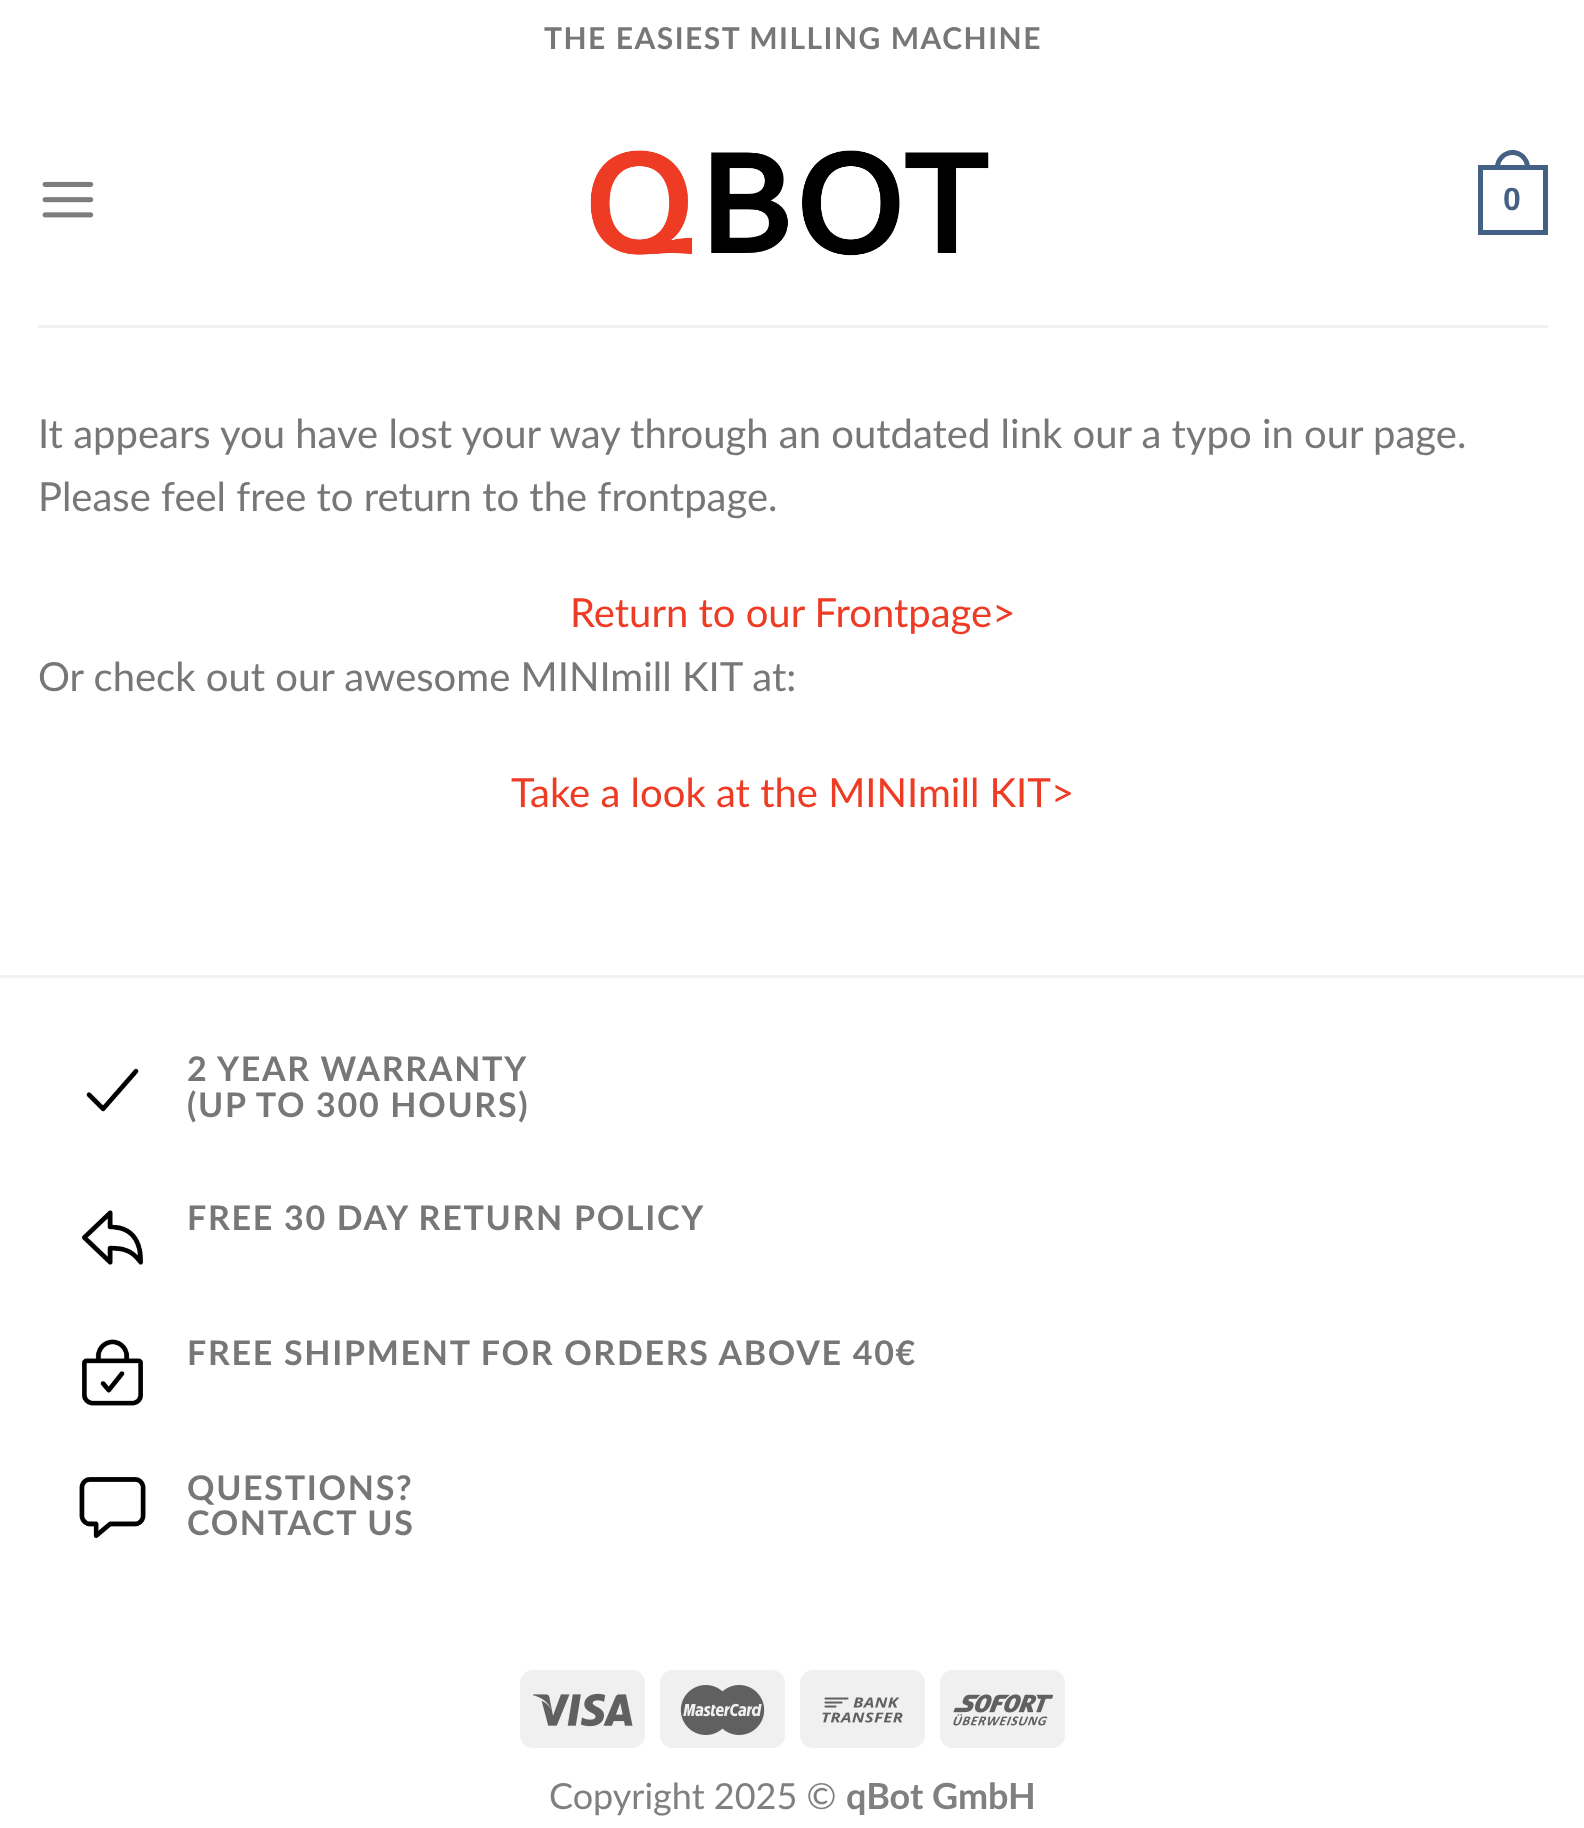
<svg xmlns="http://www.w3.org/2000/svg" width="1584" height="1828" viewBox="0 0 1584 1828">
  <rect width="100%" height="100%" fill="rgb(255,255,255)"/>
  <text x="544" y="49" font-family="Lato" font-size="30" font-weight="bold" letter-spacing="1.5" fill="rgb(119,119,119)">THE EASIEST MILLING MACHINE</text>
  <image x="42" y="181" width="52" height="37" href="pic1.png"/>
  <image x="590" y="150" width="399" height="106" href="pic2.png"/>
  <rect x="1480.5" y="167.5" width="65" height="65" fill="none" stroke="rgb(68,96,132)" stroke-width="5"/>
  <path d="M1512.5 150C1522 150 1530 158 1530 167.5V170H1495V167.5C1495 158 1503 150 1512.5 150ZM1512.5 155C1519.5 155 1525 160.5 1525 167.5V170H1500V167.5C1500 160.5 1505.5 155 1512.5 155Z" fill="rgb(68,96,132)" fill-rule="evenodd"/>
  <text x="1503" y="210" font-family="Liberation Sans" font-size="32" font-weight="bold" fill="rgb(68,96,132)">0</text>
  <rect x="38" y="325" width="1510" height="3" fill="rgb(241,241,241)"/>
  <g font-family="Lato" font-size="40" fill="rgb(119,119,119)">
    <text>
      <tspan x="38" y="448">It appears you have lost your way through an outdated link our a typo in our page.</tspan>
      <tspan x="38" y="511">Please feel free to return to the frontpage.</tspan>
    </text>
  </g>
  <text x="570" y="627" font-family="Lato" font-size="40" fill="rgb(238,59,36)">Return to our Frontpage&gt;</text>
  <text x="38" y="691" font-family="Lato" font-size="40" fill="rgb(119,119,119)">Or check out our awesome MINImill KIT at:</text>
  <text x="511" y="807" font-family="Lato" font-size="40" fill="rgb(238,59,36)">Take a look at the MINImill KIT&gt;</text>
  <rect x="0" y="975" width="1584" height="3" fill="rgb(242,242,242)"/>
  <image x="86" y="1068" width="53" height="44" href="pic3.png"/>
  <g font-family="Lato" font-size="34" font-weight="bold" letter-spacing="1.7" fill="rgb(119,119,119)">
    <text>
      <tspan x="187" y="1081">2 YEAR WARRANTY</tspan>
      <tspan x="187" y="1117">(UP TO 300 HOURS)</tspan>
    </text>
  </g>
  <image x="82" y="1210" width="61" height="55" href="pic4.png"/>
  <text x="187" y="1230" font-family="Lato" font-size="34" font-weight="bold" letter-spacing="1.7" fill="rgb(119,119,119)">FREE 30 DAY RETURN POLICY</text>
  <image x="82" y="1339" width="61" height="67" href="pic5.png"/>
  <text x="187" y="1365" font-family="Lato" font-size="34" font-weight="bold" letter-spacing="1.7" fill="rgb(119,119,119)">FREE SHIPMENT FOR ORDERS ABOVE 40€</text>
  <image x="79" y="1477" width="67" height="61" href="pic6.png"/>
  <g font-family="Lato" font-size="34" font-weight="bold" letter-spacing="1.7" fill="rgb(119,119,119)">
    <text>
      <tspan x="187" y="1500">QUESTIONS?</tspan>
      <tspan x="187" y="1535">CONTACT US</tspan>
    </text>
  </g>
  <rect x="520" y="1670" width="125" height="78" rx="13" fill="rgb(240,240,240)"/>
  <image x="533" y="1693" width="100" height="34" href="pic7.png"/>
  <rect x="660" y="1670" width="125" height="78" rx="13" fill="rgb(240,240,240)"/>
  <image x="680" y="1685" width="85" height="50" href="pic8.png"/>
  <rect x="800" y="1670" width="125" height="78" rx="13" fill="rgb(240,240,240)"/>
  <image x="822" y="1697" width="81" height="26" href="pic9.png"/>
  <rect x="940" y="1670" width="125" height="78" rx="13" fill="rgb(240,240,240)"/>
  <image x="953" y="1694" width="100" height="32" href="pic10.png"/>
  <text x="549" y="1809" font-family="Lato" font-size="36" fill="rgb(128,128,128)">Copyright 2025 ©</text>
  <text x="846" y="1809" font-family="Lato" font-size="36" font-weight="bold" fill="rgb(128,128,128)">qBot GmbH</text>
</svg>
